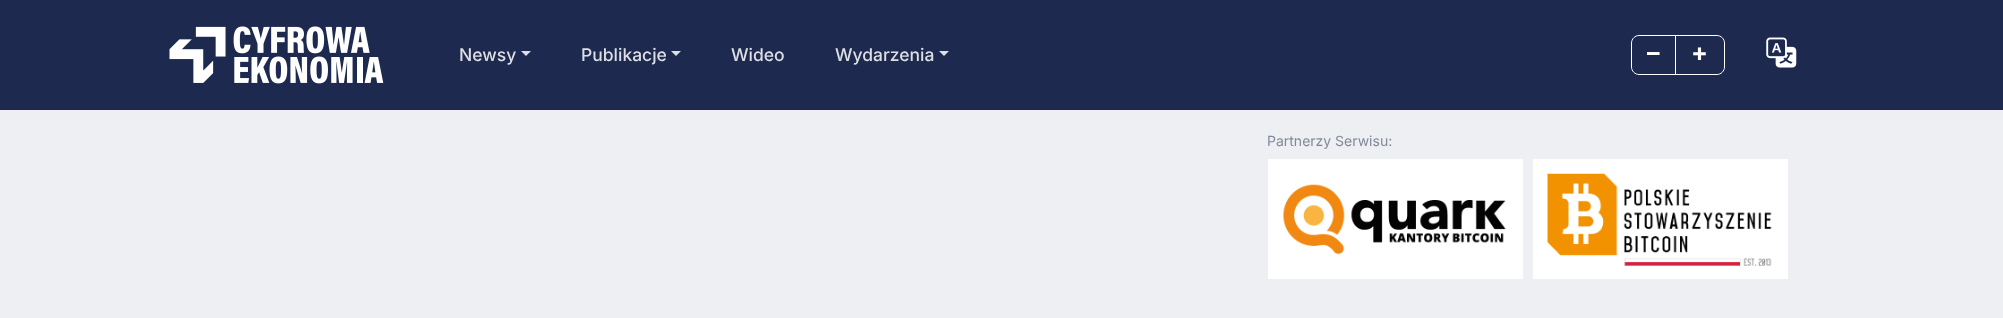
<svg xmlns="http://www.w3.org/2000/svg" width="2003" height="318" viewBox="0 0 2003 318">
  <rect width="100%" height="100%" fill="rgb(237,239,242)"/>
  <rect x="0" y="0" width="2003" height="110" fill="rgb(29,41,78)"/>
  <image x="169" y="26" width="215" height="58" href="pic1.png"/>
  <text x="459" y="61" font-family="Inter" font-size="17.5" font-weight="500" fill="rgb(221,223,228)">Newsy</text>
  <path d="M521 51H531L526 56Z" fill="rgb(221,223,228)"/>
  <text x="581" y="61" font-family="Inter" font-size="17.5" font-weight="500" fill="rgb(221,223,228)">Publikacje</text>
  <path d="M671 51H681L676 56Z" fill="rgb(221,223,228)"/>
  <g font-family="Inter" font-size="17.5" font-weight="500" fill="rgb(221,223,228)">
    <text x="731" y="61">Wideo</text>
    <text x="835" y="61">Wydarzenia</text>
  </g>
  <path d="M939 51H949L944 56Z" fill="rgb(221,223,228)"/>
  <path d="M1639 35.5H1675.5V74.5H1639C1635 74.5 1631.5 71 1631.5 67V43C1631.5 39 1635 35.5 1639 35.5Z" fill="none" stroke="rgb(255,255,255)"/>
  <text x="1647" y="61" font-family="Inter" font-size="25" font-weight="bold" fill="rgb(255,255,255)">–</text>
  <path d="M1675.5 35.5H1717C1721 35.5 1724.5 39 1724.5 43V67C1724.5 71 1721 74.5 1717 74.5H1675.5Z" fill="none" stroke="rgb(255,255,255)"/>
  <text x="1691" y="61" font-family="Inter" font-size="25" font-weight="bold" fill="rgb(255,255,255)">+</text>
  <image x="1766" y="37" width="31" height="31" href="pic2.png"/>
  <text x="1267" y="146" font-family="Inter" font-size="14" fill="rgb(130,137,153)">Partnerzy Serwisu:</text>
  <rect x="1268" y="159" width="255" height="120" fill="rgb(255,255,255)"/>
  <image x="1283" y="184" width="223" height="71" href="pic3.png"/>
  <rect x="1533" y="159" width="255" height="120" fill="rgb(255,255,255)"/>
  <image x="1547" y="173" width="225" height="93" href="pic4.png"/>
</svg>
